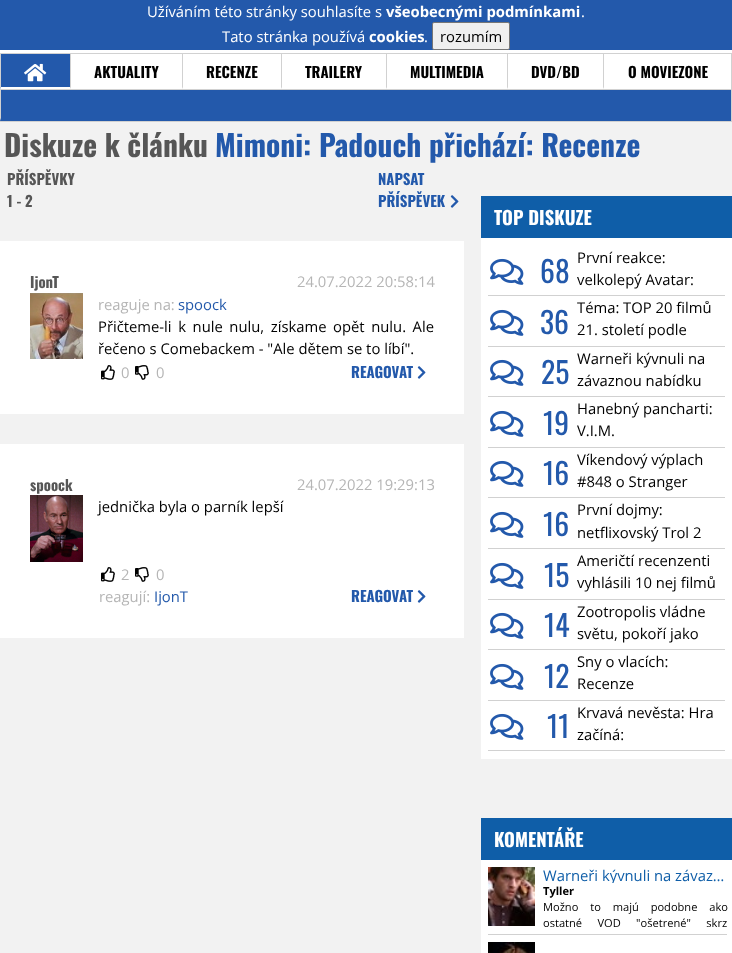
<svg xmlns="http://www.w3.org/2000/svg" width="732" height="953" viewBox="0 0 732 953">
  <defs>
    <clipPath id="clip1"><rect x="543" y="867" width="184" height="16"/></clipPath>
  </defs>
  <rect width="100%" height="100%" fill="rgb(242,242,242)"/>
  <rect x="0" y="0" width="732" height="50" fill="rgb(35,89,171)"/>
  <text x="147" y="17" font-family="Open Sans" font-size="14.8" fill="rgb(255,255,255)">Užíváním této stránky souhlasíte s</text>
  <text x="386" y="17" font-family="Open Sans" font-size="14.8" font-weight="bold" fill="rgb(255,255,255)">všeobecnými podmínkami</text>
  <g font-family="Open Sans" font-size="14.8" fill="rgb(255,255,255)">
    <text x="581" y="17">.</text>
    <text x="222" y="42">Tato stránka používá</text>
  </g>
  <text x="369" y="42" font-family="Open Sans" font-size="14.8" font-weight="bold" fill="rgb(255,255,255)">cookies</text>
  <text x="424" y="42" font-family="Open Sans" font-size="14.8" fill="rgb(255,255,255)">.</text>
  <rect x="432.5" y="22.5" width="77" height="27" rx="1.5" fill="rgb(239,239,239)" stroke="rgb(118,118,118)"/>
  <text x="440" y="42" font-family="Open Sans" font-size="14.8" fill="rgb(0,0,0)">rozumím</text>
  <rect x="0" y="50" width="732" height="39" fill="rgb(255,255,255)"/>
  <rect x="0" y="53" width="732" height="1" fill="rgb(209,209,209)"/>
  <rect x="731" y="53" width="1" height="69" fill="rgb(209,209,209)"/>
  <rect x="0" y="89" width="732" height="1" fill="rgb(209,209,209)"/>
  <rect x="0" y="54" width="70" height="35" fill="rgb(35,89,171)"/>
  <path d="M70 89H0L1 87H70Z" fill="rgb(255,255,255)"/>
  <path d="M0 89V54H1V87Z" fill="rgb(209,209,209)"/>
  <image x="24" y="63" width="23" height="19" href="pic1.png"/>
  <path d="M70 89V54H71V87Z" fill="rgb(209,209,209)"/>
  <text x="94" y="78" font-family="Oswald" font-size="14.8" font-weight="bold" fill="rgb(0,0,0)">AKTUALITY</text>
  <path d="M182 89V54H183V87Z" fill="rgb(209,209,209)"/>
  <text x="206" y="78" font-family="Oswald" font-size="14.8" font-weight="bold" fill="rgb(0,0,0)">RECENZE</text>
  <path d="M281 89V54H282V87Z" fill="rgb(209,209,209)"/>
  <text x="305" y="78" font-family="Oswald" font-size="14.8" font-weight="bold" fill="rgb(0,0,0)">TRAILERY</text>
  <path d="M386 89V54H387V87Z" fill="rgb(209,209,209)"/>
  <text x="410" y="78" font-family="Oswald" font-size="14.8" font-weight="bold" fill="rgb(0,0,0)">MULTIMEDIA</text>
  <path d="M507 89V54H508V87Z" fill="rgb(209,209,209)"/>
  <text x="531" y="78" font-family="Oswald" font-size="14.8" font-weight="bold" fill="rgb(0,0,0)">DVD/BD</text>
  <path d="M603 89V54H604V87Z" fill="rgb(209,209,209)"/>
  <text x="628" y="78" font-family="Oswald" font-size="14.8" font-weight="bold" fill="rgb(0,0,0)">O MOVIEZONE</text>
  <rect x="0" y="90" width="731" height="31" fill="rgb(35,89,171)"/>
  <rect x="0" y="121" width="732" height="1" fill="rgb(209,209,209)"/>
  <path d="M0 121V90H1V118Z" fill="rgb(209,209,209)"/>
  <text x="4" y="157" font-family="Oswald" font-size="29.6" font-weight="bold" fill="rgb(86,86,86)">Diskuze k článku</text>
  <text x="215" y="157" font-family="Oswald" font-size="29.6" font-weight="bold" fill="rgb(35,89,171)">Mimoni: Padouch přichází: Recenze</text>
  <g font-family="Oswald" font-size="14.8" font-weight="bold" fill="rgb(86,86,86)">
    <text>
      <tspan x="7" y="185">PŘÍSPĚVKY</tspan>
      <tspan x="7" y="207">1 - 2</tspan>
    </text>
  </g>
  <g font-family="Oswald" font-size="14.8" font-weight="bold" fill="rgb(35,89,171)">
    <text>
      <tspan x="378" y="185">NAPSAT</tspan>
      <tspan x="378" y="207">PŘÍSPĚVEK</tspan>
    </text>
  </g>
  <image x="450" y="195" width="9" height="13" href="pic2.png"/>
  <rect x="0" y="241" width="464" height="173" fill="rgb(255,255,255)"/>
  <text x="30" y="288" font-family="Oswald" font-size="14.8" font-weight="bold" fill="rgb(86,86,86)">IjonT</text>
  <image x="30" y="293" width="53" height="66" href="pic3.png"/>
  <g font-family="Open Sans" font-size="14.8" fill="rgb(181,181,181)">
    <text x="297" y="287">24.07.2022 20:58:14</text>
    <text x="98" y="310">reaguje na:</text>
  </g>
  <text x="178" y="310" font-family="Open Sans" font-size="14.8" fill="rgb(35,89,171)">spoock</text>
  <g font-family="Open Sans" font-size="14.8" fill="rgb(0,0,0)">
    <text>
      <tspan x="98" y="332" word-spacing="2.75">Přičteme-li k nule nulu, získame opět nulu. Ale</tspan>
      <tspan x="98" y="354">řečeno s Comebackem - "Ale dětem se to líbí".</tspan>
    </text>
  </g>
  <image x="101" y="365" width="14" height="15" href="pic4.png"/>
  <text x="121" y="378" font-family="Open Sans" font-size="14.8" fill="rgb(181,181,181)">0</text>
  <image x="135" y="365" width="14" height="15" href="pic5.png"/>
  <text x="156" y="378" font-family="Open Sans" font-size="14.8" fill="rgb(181,181,181)">0</text>
  <text x="351" y="378" font-family="Oswald" font-size="14.8" font-weight="bold" fill="rgb(35,89,171)">REAGOVAT</text>
  <image x="417" y="366" width="9" height="13" href="pic6.png"/>
  <rect x="0" y="444" width="464" height="194" fill="rgb(255,255,255)"/>
  <text x="30" y="491" font-family="Oswald" font-size="14.8" font-weight="bold" fill="rgb(86,86,86)">spoock</text>
  <image x="30" y="495" width="53" height="67" href="pic7.png"/>
  <text x="297" y="490" font-family="Open Sans" font-size="14.8" fill="rgb(181,181,181)">24.07.2022 19:29:13</text>
  <text x="98" y="512" font-family="Open Sans" font-size="14.8" fill="rgb(0,0,0)">jednička byla o parník lepší</text>
  <image x="101" y="567" width="14" height="15" href="pic4.png"/>
  <text x="121" y="580" font-family="Open Sans" font-size="14.8" fill="rgb(181,181,181)">2</text>
  <image x="135" y="567" width="14" height="15" href="pic5.png"/>
  <g font-family="Open Sans" font-size="14.8" fill="rgb(181,181,181)">
    <text x="156" y="580">0</text>
    <text x="99" y="602">reagují:</text>
  </g>
  <text x="154" y="602" font-family="Open Sans" font-size="14.8" fill="rgb(35,89,171)">IjonT</text>
  <text x="351" y="602" font-family="Oswald" font-size="14.8" font-weight="bold" fill="rgb(35,89,171)">REAGOVAT</text>
  <image x="417" y="590" width="9" height="13" href="pic6.png"/>
  <rect x="481" y="238" width="251" height="521" fill="rgb(255,255,255)"/>
  <rect x="481" y="196" width="251" height="42" fill="rgb(15,94,168)"/>
  <text x="494" y="225" font-family="Oswald" font-size="18.5" font-weight="bold" fill="rgb(255,255,255)">TOP DISKUZE</text>
  <rect x="488" y="295" width="237" height="1" fill="rgb(209,209,209)"/>
  <image x="490" y="258" width="34" height="27" href="pic8.png"/>
  <text x="540" y="283" font-family="Oswald" font-size="29.6" fill="rgb(35,89,171)">68</text>
  <g font-family="Open Sans" font-size="14.8" fill="rgb(0,0,0)">
    <text>
      <tspan x="577" y="263">První reakce:</tspan>
      <tspan x="577" y="285">velkolepý Avatar:</tspan>
    </text>
  </g>
  <rect x="488" y="346" width="237" height="1" fill="rgb(209,209,209)"/>
  <image x="490" y="309" width="34" height="27" href="pic8.png"/>
  <text x="540" y="334" font-family="Oswald" font-size="29.6" fill="rgb(35,89,171)">36</text>
  <g font-family="Open Sans" font-size="14.8" fill="rgb(0,0,0)">
    <text>
      <tspan x="577" y="313">Téma: TOP 20 filmů</tspan>
      <tspan x="577" y="335">21. století podle</tspan>
    </text>
  </g>
  <rect x="488" y="396" width="237" height="1" fill="rgb(209,209,209)"/>
  <image x="490" y="359" width="34" height="27" href="pic8.png"/>
  <text x="541" y="384" font-family="Oswald" font-size="29.6" fill="rgb(35,89,171)">25</text>
  <g font-family="Open Sans" font-size="14.8" fill="rgb(0,0,0)">
    <text>
      <tspan x="577" y="364">Warneři kývnuli na</tspan>
      <tspan x="577" y="386">závaznou nabídku</tspan>
    </text>
  </g>
  <rect x="488" y="447" width="237" height="1" fill="rgb(209,209,209)"/>
  <image x="490" y="410" width="34" height="27" href="pic8.png"/>
  <text x="543" y="435" font-family="Oswald" font-size="29.6" fill="rgb(35,89,171)">19</text>
  <g font-family="Open Sans" font-size="14.8" fill="rgb(0,0,0)">
    <text>
      <tspan x="577" y="414">Hanebný pancharti:</tspan>
      <tspan x="577" y="436">V.I.M.</tspan>
    </text>
  </g>
  <rect x="488" y="497" width="237" height="1" fill="rgb(209,209,209)"/>
  <image x="490" y="460" width="34" height="27" href="pic8.png"/>
  <text x="543" y="485" font-family="Oswald" font-size="29.6" fill="rgb(35,89,171)">16</text>
  <g font-family="Open Sans" font-size="14.8" fill="rgb(0,0,0)">
    <text>
      <tspan x="577" y="465">Víkendový výplach</tspan>
      <tspan x="577" y="487">#848 o Stranger</tspan>
    </text>
  </g>
  <rect x="488" y="548" width="237" height="1" fill="rgb(209,209,209)"/>
  <image x="490" y="511" width="34" height="27" href="pic8.png"/>
  <text x="543" y="536" font-family="Oswald" font-size="29.6" fill="rgb(35,89,171)">16</text>
  <g font-family="Open Sans" font-size="14.8" fill="rgb(0,0,0)">
    <text>
      <tspan x="577" y="515">První dojmy:</tspan>
      <tspan x="577" y="538">netflixovský Trol 2</tspan>
    </text>
  </g>
  <rect x="488" y="599" width="237" height="1" fill="rgb(209,209,209)"/>
  <image x="490" y="562" width="34" height="27" href="pic8.png"/>
  <text x="544" y="587" font-family="Oswald" font-size="29.6" fill="rgb(35,89,171)">15</text>
  <g font-family="Open Sans" font-size="14.8" fill="rgb(0,0,0)">
    <text>
      <tspan x="577" y="566">Američtí recenzenti</tspan>
      <tspan x="577" y="588">vyhlásili 10 nej filmů</tspan>
    </text>
  </g>
  <rect x="488" y="649" width="237" height="1" fill="rgb(209,209,209)"/>
  <image x="490" y="612" width="34" height="27" href="pic8.png"/>
  <text x="544" y="637" font-family="Oswald" font-size="29.6" fill="rgb(35,89,171)">14</text>
  <g font-family="Open Sans" font-size="14.8" fill="rgb(0,0,0)">
    <text>
      <tspan x="577" y="617">Zootropolis vládne</tspan>
      <tspan x="577" y="639">světu, pokoří jako</tspan>
    </text>
  </g>
  <rect x="488" y="700" width="237" height="1" fill="rgb(209,209,209)"/>
  <image x="490" y="663" width="34" height="27" href="pic8.png"/>
  <text x="544" y="688" font-family="Oswald" font-size="29.6" fill="rgb(35,89,171)">12</text>
  <g font-family="Open Sans" font-size="14.8" fill="rgb(0,0,0)">
    <text>
      <tspan x="577" y="667">Sny o vlacích:</tspan>
      <tspan x="577" y="689">Recenze</tspan>
    </text>
  </g>
  <rect x="488" y="750" width="237" height="1" fill="rgb(209,209,209)"/>
  <image x="490" y="713" width="34" height="27" href="pic8.png"/>
  <text x="547" y="738" font-family="Oswald" font-size="29.6" fill="rgb(35,89,171)">11</text>
  <g font-family="Open Sans" font-size="14.8" fill="rgb(0,0,0)">
    <text>
      <tspan x="577" y="718">Krvavá nevěsta: Hra</tspan>
      <tspan x="577" y="740">začíná:</tspan>
    </text>
  </g>
  <rect x="481" y="860" width="251" height="93" fill="rgb(255,255,255)"/>
  <rect x="481" y="818" width="251" height="42" fill="rgb(15,94,168)"/>
  <text x="494" y="847" font-family="Oswald" font-size="18.5" font-weight="bold" fill="rgb(255,255,255)">KOMENTÁŘE</text>
  <rect x="488" y="934" width="239" height="1" fill="rgb(209,209,209)"/>
  <image x="488" y="867" width="47" height="59" href="pic9.png"/>
  <g clip-path="url(#clip1)">
    <text x="543" y="881" font-family="Open Sans" font-size="14.8" fill="rgb(15,94,168)">Warneři kývnuli na závaz…</text>
  </g>
  <text x="543" y="895" font-family="Open Sans" font-size="11.1" font-weight="bold" fill="rgb(0,0,0)">Tyller</text>
  <g font-family="Open Sans" font-size="11.1" fill="rgb(0,0,0)">
    <text>
      <tspan x="543" y="911" word-spacing="9">Možno to majú podobne ako</tspan>
      <tspan x="543" y="927" word-spacing="12.5">ostatné VOD "ošetrené" skrz</tspan>
    </text>
  </g>
  <image x="488" y="942" width="47" height="11" href="pic10.png"/>
</svg>
